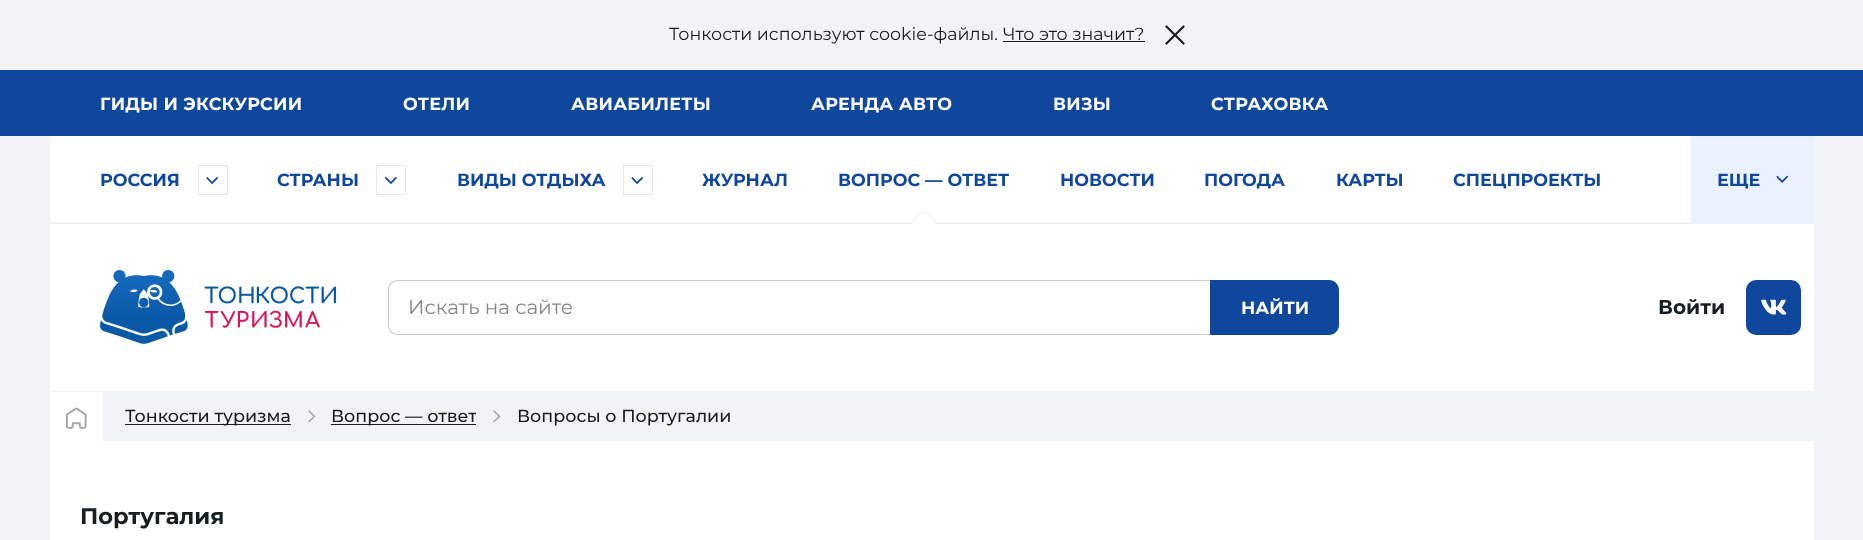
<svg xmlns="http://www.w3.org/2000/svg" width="1863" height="540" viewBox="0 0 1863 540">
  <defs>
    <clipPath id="clip1"><rect x="814" y="136" width="221" height="88"/></clipPath>
    <clipPath id="clip2"><rect x="331" y="406" width="145" height="20"/></clipPath>
  </defs>
  <rect width="100%" height="100%" fill="rgb(242,243,247)"/>
  <text x="669" y="40" font-family="Montserrat" font-size="17.5" fill="rgb(22,29,35)">Тонкости используют сookie-файлы. Что это значит?</text>
  <rect x="1003" y="41" width="142" height="1" fill="rgb(22,29,35)"/>
  <image x="1165" y="25" width="20" height="20" href="pic1.png"/>
  <rect x="0" y="70" width="1863" height="66" fill="rgb(15,71,156)"/>
  <g font-family="Montserrat" font-size="17.5" font-weight="bold" letter-spacing="0.25" fill="rgb(255,255,255)">
    <text x="100" y="110">ГИДЫ И ЭКСКУРСИИ</text>
    <text x="403" y="110">ОТЕЛИ</text>
    <text x="571" y="110">АВИАБИЛЕТЫ</text>
    <text x="811" y="110">АРЕНДА АВТО</text>
    <text x="1053" y="110">ВИЗЫ</text>
    <text x="1211" y="110">СТРАХОВКА</text>
  </g>
  <rect x="50" y="136" width="1764" height="404" fill="rgb(255,255,255)"/>
  <rect x="50" y="223" width="1641" height="1" fill="rgb(229,230,233)"/>
  <text x="100" y="186" font-family="Montserrat" font-size="17.5" font-weight="bold" fill="rgb(15,71,156)">РОССИЯ</text>
  <rect x="198.5" y="165.5" width="29" height="29" fill="none" stroke="rgb(229,230,233)"/>
  <image x="206" y="177" width="12" height="8" href="pic2.png"/>
  <text x="277" y="186" font-family="Montserrat" font-size="17.5" font-weight="bold" fill="rgb(15,71,156)">СТРАНЫ</text>
  <rect x="376.5" y="165.5" width="29" height="29" fill="none" stroke="rgb(229,230,233)"/>
  <image x="385" y="177" width="12" height="8" href="pic3.png"/>
  <text x="457" y="186" font-family="Montserrat" font-size="17.5" font-weight="bold" fill="rgb(15,71,156)">ВИДЫ ОТДЫХА</text>
  <rect x="623.5" y="165.5" width="29" height="29" fill="none" stroke="rgb(229,230,233)"/>
  <image x="631" y="177" width="12" height="8" href="pic2.png"/>
  <g font-family="Montserrat" font-size="17.5" font-weight="bold" fill="rgb(15,71,156)">
    <text x="702" y="186">ЖУРНАЛ</text>
    <text x="838" y="186">ВОПРОС — ОТВЕТ</text>
  </g>
  <path d="M937.5 224H910L924 210Z" fill="rgb(229,230,233)"/>
  <g clip-path="url(#clip1)">
    <path d="M937.5 225H910L924 211Z" fill="rgb(255,255,255)"/>
  </g>
  <g font-family="Montserrat" font-size="17.5" font-weight="bold" fill="rgb(15,71,156)">
    <text x="1060" y="186">НОВОСТИ</text>
    <text x="1204" y="186">ПОГОДА</text>
    <text x="1336" y="186">КАРТЫ</text>
    <text x="1453" y="186">СПЕЦПРОЕКТЫ</text>
  </g>
  <rect x="1691" y="136" width="123" height="88" fill="rgb(235,242,255)"/>
  <text x="1717" y="186" font-family="Montserrat" font-size="17.5" font-weight="bold" fill="rgb(15,71,156)">ЕЩЕ</text>
  <image x="1776" y="175" width="12" height="8" href="pic4.png"/>
  <image x="100" y="270" width="237" height="74" href="pic5.png"/>
  <path d="M398 280H1210V335H398C392 335 388 331 388 325V290C388 284 392 280 398 280ZM398 281H1210V334H398C393 334 389 330 389 325V290C389 285 393 281 398 281Z" fill="rgb(202,206,210)" fill-rule="evenodd"/>
  <text x="408" y="314" font-family="Montserrat" font-size="20" fill="rgb(136,136,136)">Искать на сайте</text>
  <path d="M1210 280H1329C1334.5 280 1339 284.5 1339 290V325C1339 330.5 1334.5 335 1329 335H1210Z" fill="rgb(15,71,156)"/>
  <text x="1241" y="314" font-family="Montserrat" font-size="17.5" font-weight="bold" fill="rgb(255,255,255)">НАЙТИ</text>
  <text x="1658" y="314" font-family="Montserrat" font-size="20" font-weight="bold" fill="rgb(22,29,35)">Войти</text>
  <rect x="1746" y="280" width="55" height="55" rx="10" fill="rgb(15,71,156)"/>
  <image x="1761" y="299" width="26" height="16" href="pic6.png"/>
  <rect x="103" y="391" width="1711" height="50" fill="rgb(242,243,247)"/>
  <image x="65" y="407" width="22" height="22" href="pic7.png"/>
  <rect x="50" y="391" width="53" height="1" fill="rgb(242,243,247)"/>
  <rect x="125" y="424" width="166" height="1" fill="rgb(22,29,35)"/>
  <text x="125" y="422" font-family="Montserrat" font-size="17.5" font-weight="500" fill="rgb(22,29,35)">Тонкости туризма</text>
  <path d="M309 411L314.5 416.5L309 421.5" fill="none" stroke="rgb(161,166,169)" stroke-width="1.5" stroke-linecap="round" stroke-linejoin="round"/>
  <rect x="331" y="424" width="145" height="1" fill="rgb(22,29,35)"/>
  <g clip-path="url(#clip2)">
    <text x="331" y="422" font-family="Montserrat" font-size="17.5" font-weight="500" fill="rgb(22,29,35)">Вопрос — ответ</text>
  </g>
  <path d="M494 411L499.5 416.5L494 421.5" fill="none" stroke="rgb(161,166,169)" stroke-width="1.5" stroke-linecap="round" stroke-linejoin="round"/>
  <text x="517" y="422" font-family="Montserrat" font-size="17.5" font-weight="500" fill="rgb(22,29,35)">Вопросы о Португалии</text>
  <text x="80" y="524" font-family="Montserrat" font-size="22.5" font-weight="bold" fill="rgb(22,29,35)">Португалия</text>
</svg>
